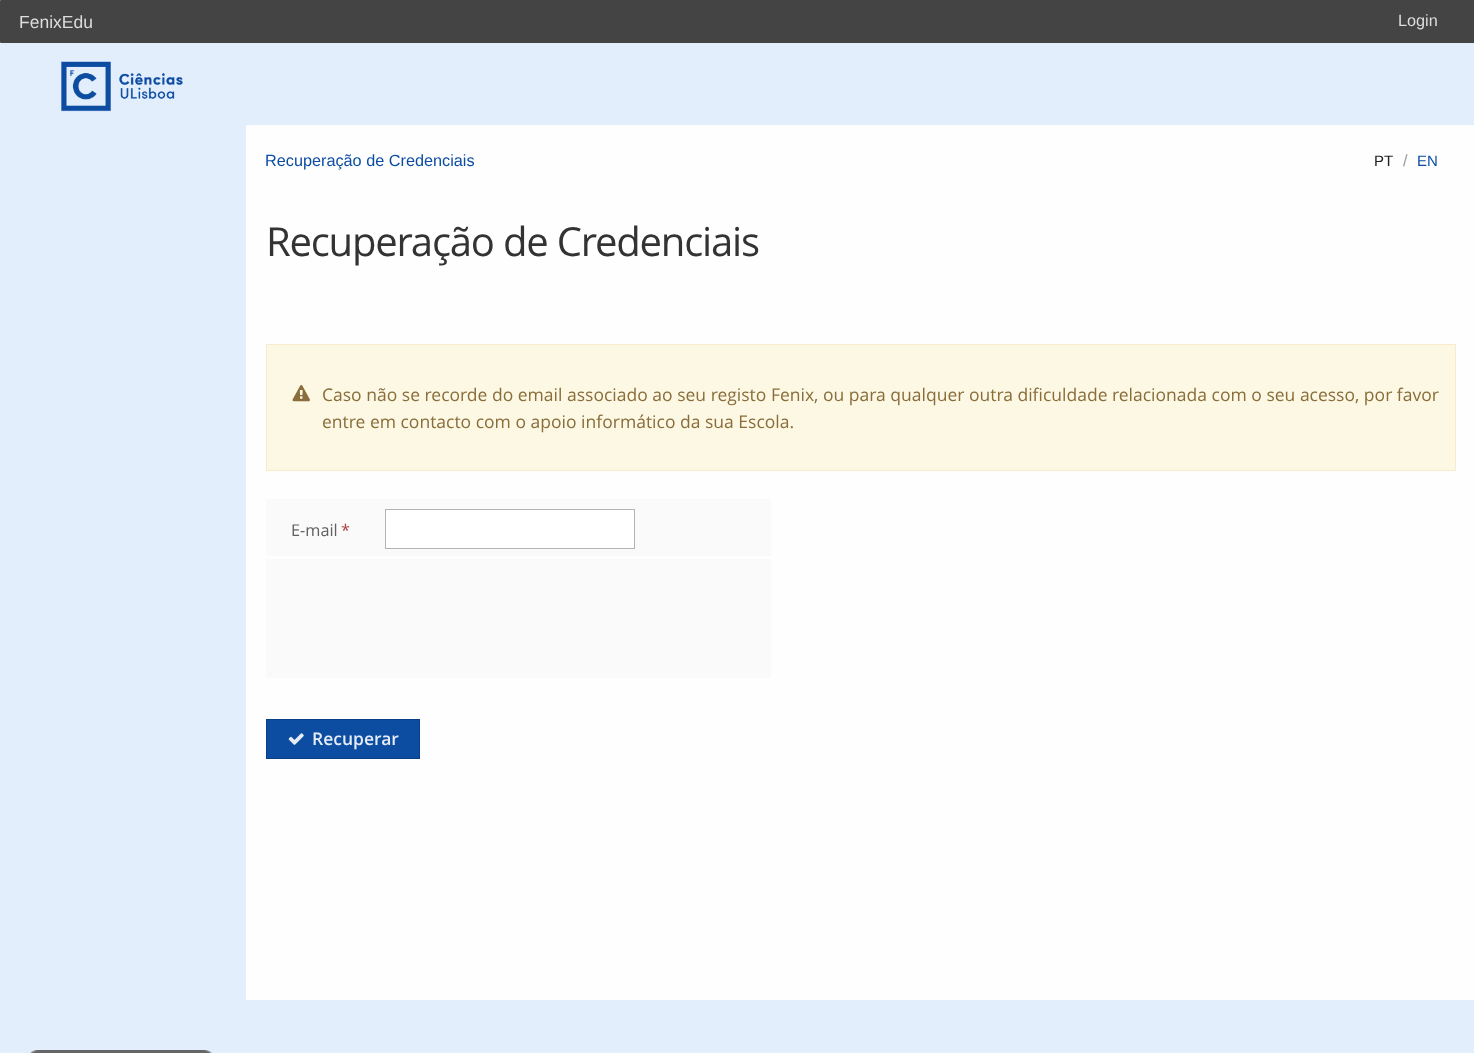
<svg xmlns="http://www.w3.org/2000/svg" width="1474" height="1053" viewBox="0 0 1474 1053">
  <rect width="100%" height="100%" fill="rgb(227,238,253)"/>
  <rect x="0" y="0" width="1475" height="43" rx="1" fill="rgb(68,68,68)"/>
  <text x="19" y="28" font-family="Liberation Sans" font-size="17.5" fill="rgb(221,221,221)">FenixEdu</text>
  <text x="1398" y="26" font-family="Liberation Sans" font-size="16.25" fill="rgb(221,221,221)">Login</text>
  <image x="61" y="61" width="122" height="51" href="pic1.png"/>
  <rect x="246" y="125" width="1228" height="875" fill="rgb(254,254,254)"/>
  <text x="265" y="166" font-family="Liberation Sans" font-size="16.25" fill="rgb(12,77,162)">Recuperação de Credenciais</text>
  <text x="1374" y="166" font-family="Liberation Sans" font-size="15" fill="rgb(34,34,34)">PT</text>
  <text x="1403" y="166" font-family="Liberation Sans" font-size="16.25" fill="rgb(153,153,153)">/</text>
  <text x="1417" y="166" font-family="Liberation Sans" font-size="15" fill="rgb(12,77,162)">EN</text>
  <text x="266" y="256" font-family="Open Sans" font-size="40" letter-spacing="-1.2" fill="rgb(51,51,51)">Recuperação de Credenciais</text>
  <rect x="266.5" y="344.5" width="1189" height="126" fill="rgb(252,248,227)" stroke="rgb(250,235,204)"/>
  <image x="292" y="385" width="18" height="17" href="pic2.png"/>
  <g font-family="Open Sans" font-size="17.5" fill="rgb(138,109,59)">
    <text>
      <tspan x="322" y="401">Caso não se recorde do email associado ao seu registo Fenix, ou para qualquer outra dificuldade relacionada com o seu acesso, por favor</tspan>
      <tspan x="322" y="428">entre em contacto com o apoio informático da sua Escola.</tspan>
    </text>
  </g>
  <rect x="266" y="499" width="505" height="57" fill="rgb(250,250,250)"/>
  <text x="291" y="536" font-family="Open Sans" font-size="16.25" fill="rgb(96,96,96)">E-mail</text>
  <text x="341" y="536" font-family="Open Sans" font-size="16.25" fill="rgb(169,68,66)">*</text>
  <rect x="385.5" y="509.5" width="249" height="39" fill="rgb(255,255,255)" stroke="rgb(179,179,179)"/>
  <rect x="266" y="559" width="505" height="119" fill="rgb(250,250,250)"/>
  <rect x="266.5" y="719.5" width="153" height="39" fill="rgb(12,77,162)" stroke="rgb(10,63,133)"/>
  <image x="288" y="733" width="16" height="12" href="pic3.png"/>
  <text x="312" y="745" font-family="Open Sans" font-size="17.5" font-weight="600" fill="rgb(230,237,246)">Recuperar</text>
  <image x="30" y="1050" width="182" height="3" href="pic4.png"/>
</svg>
